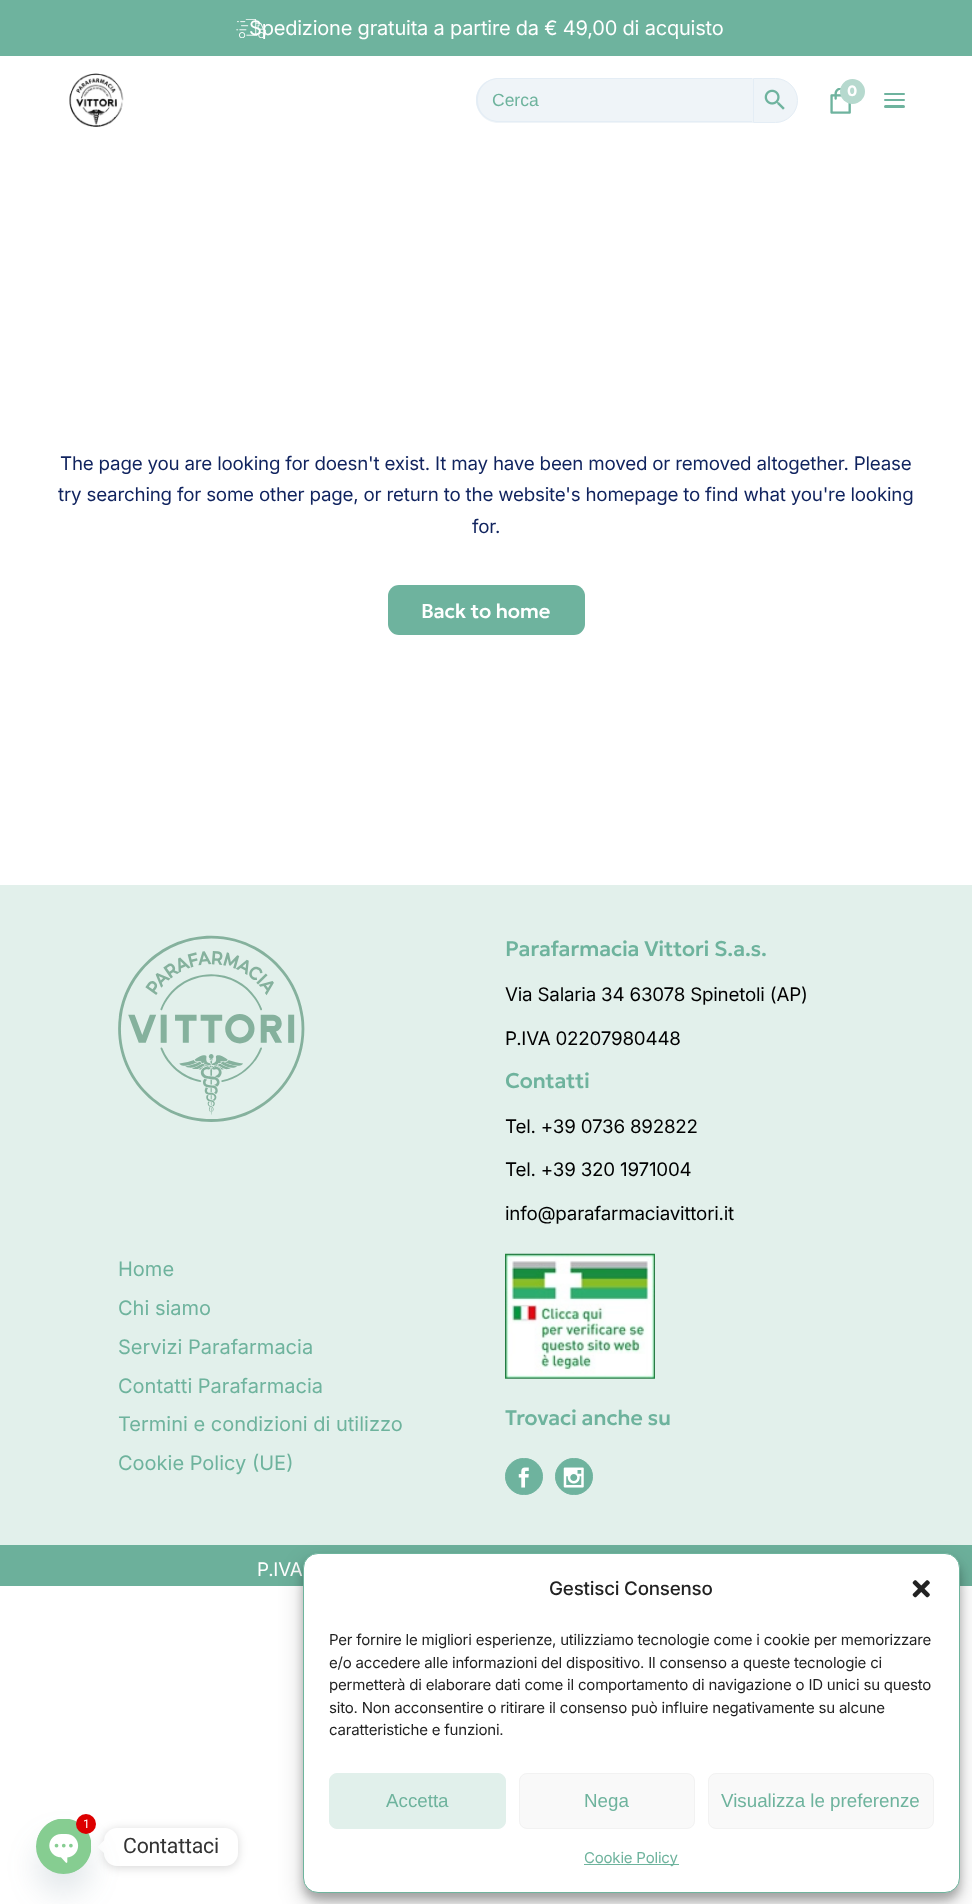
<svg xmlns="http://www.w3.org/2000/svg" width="972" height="1904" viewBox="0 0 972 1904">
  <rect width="100%" height="100%" fill="rgb(255,255,255)"/>
  <rect x="0" y="0" width="972" height="56" fill="rgb(110,179,158)"/>
  <image x="236" y="19" width="30" height="19" href="pic1.png"/>
  <text x="249" y="35" font-family="Inter" font-size="20" letter-spacing="-0.2" fill="rgb(255,255,255)">Spedizione gratuita a partire da € 49,00 di acquisto</text>
  <image x="69" y="73" width="55" height="54" href="pic2.png"/>
  <image x="830" y="88" width="21" height="26" href="pic3.png"/>
  <circle cx="852.5" cy="91.5" r="12.5" fill="rgb(182,217,206)"/>
  <text x="847" y="96" font-family="Geologica" font-size="15" font-weight="bold" letter-spacing="-0.2" fill="rgb(255,255,255)">0</text>
  <path d="M498.5 78H753V123H498.5C486 123 476 113 476 100.5C476 88 486 78 498.5 78Z" fill="rgb(239,244,248)"/>
  <path d="M499 78H752V122H499C486 122 476 112 476 100C476 88 486 78 499 78ZM499 79H752V121H499C487 121 478 112 478 100C478 88 487 79 499 79Z" fill="rgb(228,237,245)" fill-rule="evenodd"/>
  <text x="492" y="106" font-family="Liberation Sans" font-size="17.5" fill="rgb(110,179,157)">Cerca</text>
  <path d="M753.5 78.5H775.5C787.5 78.5 797.5 88.5 797.5 100.5C797.5 112.5 787.5 122.5 775.5 122.5H753.5Z" fill="rgb(239,244,248)" stroke="rgb(228,237,245)"/>
  <image x="764" y="89" width="21" height="21" href="pic4.png"/>
  <rect x="884" y="93" width="21" height="2" rx="1" fill="rgb(110,179,158)"/>
  <rect x="884" y="99" width="21" height="2" rx="1" fill="rgb(110,179,158)"/>
  <rect x="884" y="105" width="21" height="3" rx="1.5" fill="rgb(110,179,158)"/>
  <g font-family="Inter" font-size="18.75" letter-spacing="-0.2" fill="rgb(16,35,94)">
    <text x="60" y="470">The page you are looking for doesn't exist. It may have been moved or removed altogether. Please</text>
    <text x="58" y="501">try searching for some other page, or return to the website's homepage to find what you're looking</text>
    <text x="472" y="533">for.</text>
  </g>
  <rect x="388" y="585" width="197" height="50" rx="11" fill="rgb(110,179,158)"/>
  <text x="421" y="618" font-family="Geologica" font-size="20" font-weight="500" letter-spacing="-0.25" fill="rgb(255,255,255)">Back to home</text>
  <rect x="0" y="885" width="972" height="660" fill="rgb(226,240,235)"/>
  <image x="118" y="935" width="187" height="187" href="pic5.png"/>
  <text x="505" y="956" font-family="Geologica" font-size="21.25" font-weight="500" letter-spacing="-0.2" fill="rgb(110,179,157)">Parafarmacia Vittori S.a.s.</text>
  <g font-family="Inter" font-size="18.75" letter-spacing="-0.2" fill="rgb(0,0,0)">
    <text x="505" y="1001">Via Salaria 34 63078 Spinetoli (AP)</text>
    <text x="505" y="1045">P.IVA 02207980448</text>
  </g>
  <text x="505" y="1088" font-family="Geologica" font-size="21.25" font-weight="500" letter-spacing="-0.2" fill="rgb(110,179,157)">Contatti</text>
  <g font-family="Inter" font-size="18.75" letter-spacing="-0.2" fill="rgb(0,0,0)">
    <text x="505" y="1133">Tel. +39 0736 892822</text>
    <text x="505" y="1176">Tel. +39 320 1971004</text>
    <text x="505" y="1220">info@parafarmaciavittori.it</text>
  </g>
  <g font-family="Inter" font-size="20" fill="rgb(110,179,157)">
    <text>
      <tspan x="118" y="1276">Home</tspan>
      <tspan x="118" y="1315">Chi siamo</tspan>
      <tspan x="118" y="1354">Servizi Parafarmacia</tspan>
      <tspan x="118" y="1393">Contatti Parafarmacia</tspan>
      <tspan x="118" y="1431">Termini e condizioni di utilizzo</tspan>
      <tspan x="118" y="1470">Cookie Policy (UE)</tspan>
    </text>
  </g>
  <image x="505" y="1253" width="150" height="126" href="pic6.png"/>
  <text x="505" y="1425" font-family="Geologica" font-size="21.25" font-weight="500" letter-spacing="-0.2" fill="rgb(110,179,157)">Trovaci anche su</text>
  <rect x="505.5" y="1458.5" width="37" height="36" rx="18" fill="rgb(110,179,158)" stroke="rgb(110,179,158)"/>
  <image x="518" y="1467" width="11" height="21" href="pic7.png"/>
  <rect x="555.5" y="1458.5" width="37" height="36" rx="18" fill="rgb(110,179,158)" stroke="rgb(110,179,158)"/>
  <image x="563" y="1467" width="21" height="21" href="pic8.png"/>
  <rect x="0" y="1545" width="972" height="41" fill="rgb(108,176,155)"/>
  <text x="257" y="1576" font-family="Inter" font-size="18.75" letter-spacing="-0.2" fill="rgb(255,255,255)">P.IVA</text>
  <rect x="104" y="1829" width="134" height="39" rx="13" fill="rgba(0,0,0,0.15)" filter="blur(5px)"/>
  <rect x="104" y="1828" width="134" height="38" rx="13" fill="rgb(255,255,255)"/>
  <path d="M104 1840.5V1853L97.5 1847Z" fill="rgb(255,255,255)"/>
  <rect x="36" y="1839" width="55" height="55" rx="27.5" fill="rgba(73,104,126,0.16)" filter="blur(15px)"/>
  <circle cx="63.5" cy="1846.5" r="27.5" fill="rgb(134,205,145)"/>
  <image x="37" y="1819" width="54" height="54" href="pic9.png"/>
  <circle cx="86" cy="1824" r="10" fill="rgb(221,0,0)"/>
  <text x="83" y="1828" font-family="Roboto" font-size="12" letter-spacing="-0.2" fill="rgb(255,255,255)">1</text>
  <text x="123" y="1853" font-family="Roboto" font-size="21.25" letter-spacing="-0.2" fill="rgb(51,51,51)">Contattaci</text>
  <rect x="303" y="1560" width="657" height="340" rx="15" fill="rgba(0,0,0,0.23)" filter="blur(4px)"/>
  <rect x="303" y="1565" width="657" height="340" rx="15" fill="rgba(0,0,0,0.19)" filter="blur(12.5px)"/>
  <rect x="303.5" y="1553.5" width="656" height="339" rx="14.5" fill="rgb(255,255,255)" stroke="rgb(110,180,157)"/>
  <text x="549" y="1595" font-family="Inter" font-size="18.75" font-weight="500" letter-spacing="-0.2" fill="rgb(34,34,34)">Gestisci Consenso</text>
  <image x="912" y="1580" width="18" height="18" href="pic10.png"/>
  <g font-family="Inter" font-size="15" letter-spacing="-0.2" fill="rgb(34,34,34)">
    <text>
      <tspan x="329" y="1645">Per fornire le migliori esperienze, utilizziamo tecnologie come i cookie per memorizzare</tspan>
      <tspan x="329" y="1668">e/o accedere alle informazioni del dispositivo. Il consenso a queste tecnologie ci</tspan>
      <tspan x="329" y="1690">permetterà di elaborare dati come il comportamento di navigazione o ID unici su questo</tspan>
      <tspan x="329" y="1713">sito. Non acconsentire o ritirare il consenso può influire negativamente su alcune</tspan>
      <tspan x="329" y="1735">caratteristiche e funzioni.</tspan>
    </text>
  </g>
  <rect x="329.5" y="1773.5" width="176" height="55" rx="7.5" fill="rgb(225,240,235)" stroke="rgb(225,240,235)"/>
  <text x="386" y="1807" font-family="Liberation Sans" font-size="18.75" fill="rgb(110,179,157)">Accetta</text>
  <rect x="519.5" y="1773.5" width="175" height="55" rx="7.5" fill="rgb(249,249,249)" stroke="rgb(242,242,242)"/>
  <text x="584" y="1807" font-family="Liberation Sans" font-size="18.75" fill="rgb(110,179,157)">Nega</text>
  <rect x="708.5" y="1773.5" width="225" height="55" rx="7.5" fill="rgb(249,249,249)" stroke="rgb(242,242,242)"/>
  <text x="721" y="1807" font-family="Liberation Sans" font-size="18.75" fill="rgb(110,179,157)">Visualizza le preferenze</text>
  <rect x="584" y="1864" width="95" height="1" fill="rgb(110,180,157)"/>
  <text x="584" y="1863" font-family="Inter" font-size="15" letter-spacing="-0.2" fill="rgb(110,179,157)">Cookie Policy</text>
</svg>
